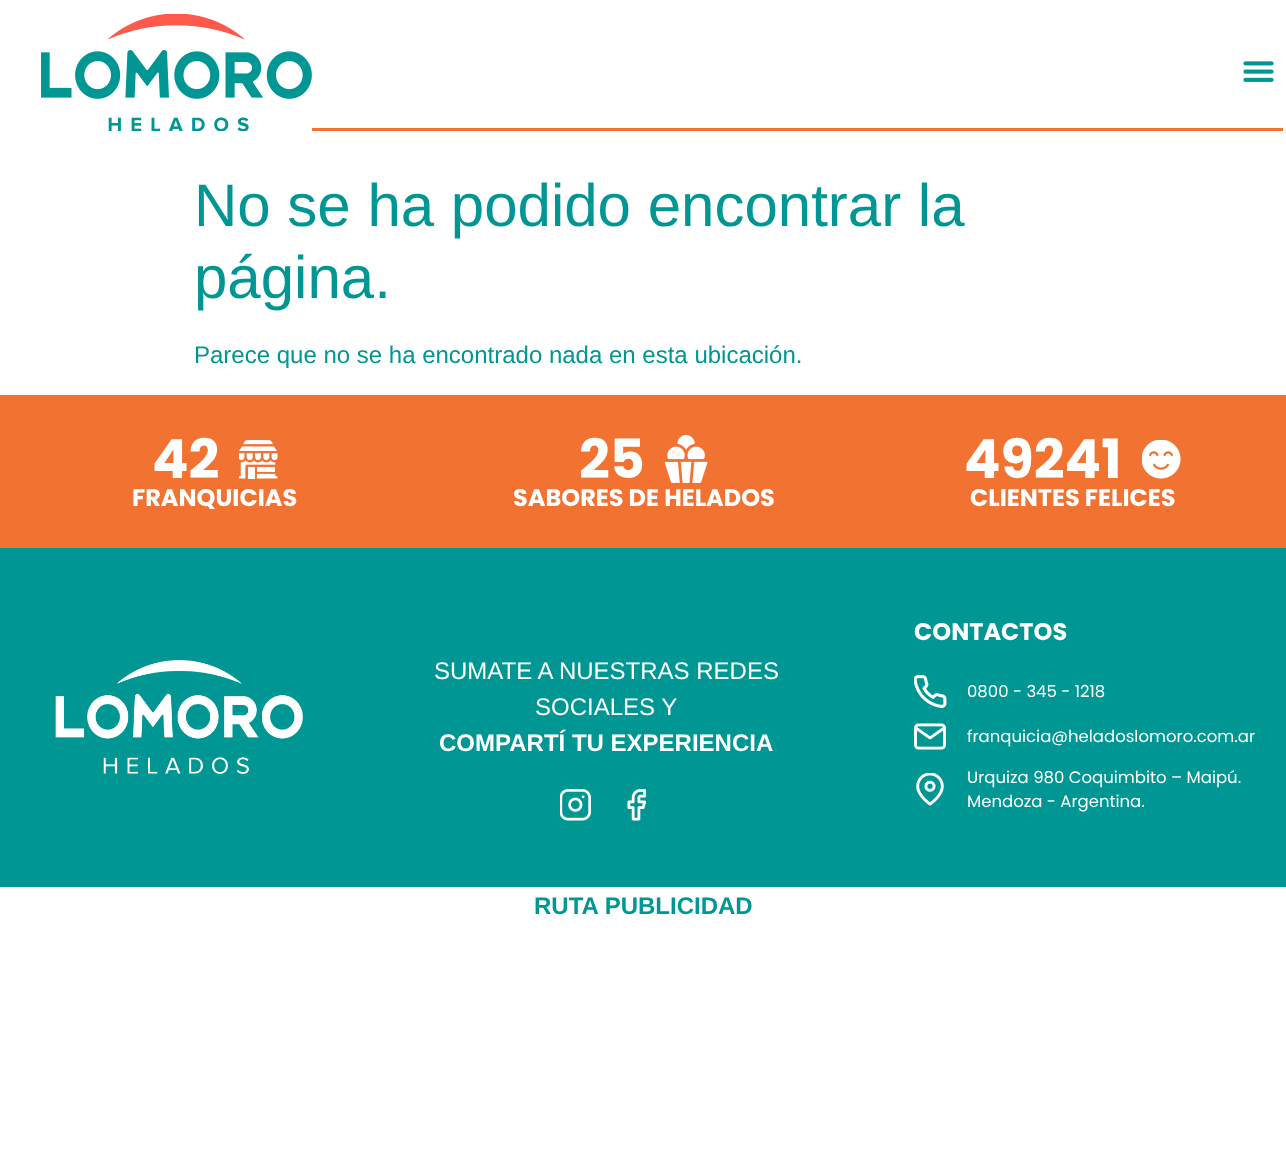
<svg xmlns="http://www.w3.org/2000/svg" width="1286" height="1174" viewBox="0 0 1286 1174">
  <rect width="100%" height="100%" fill="rgb(255,255,255)"/>
  <image x="41" y="14" width="271" height="117" href="pic1.png"/>
  <rect x="312" y="128" width="971" height="3" fill="rgb(242,114,49)"/>
  <image x="1243" y="61" width="31" height="21" href="pic2.png"/>
  <g font-family="Liberation Sans" font-size="60" fill="rgb(0,150,148)">
    <text>
      <tspan x="194" y="226">No se ha podido encontrar la</tspan>
      <tspan x="194" y="298">página.</tspan>
    </text>
  </g>
  <text x="194" y="363" font-family="Liberation Sans" font-size="24" fill="rgb(0,150,148)">Parece que no se ha encontrado nada en esta ubicación.</text>
  <rect x="0" y="395" width="1286" height="153" fill="rgb(242,114,49)"/>
  <text x="152" y="478" font-family="Poppins" font-size="54" font-weight="bold" fill="rgb(255,255,255)">42</text>
  <image x="239" y="440" width="39" height="39" href="pic3.png"/>
  <text x="132" y="506" font-family="Poppins" font-size="24" font-weight="bold" fill="rgb(255,255,255)">FRANQUICIAS</text>
  <text x="579" y="478" font-family="Poppins" font-size="54" font-weight="bold" fill="rgb(255,255,255)">25</text>
  <image x="665" y="435" width="43" height="48" href="pic4.png"/>
  <text x="513" y="506" font-family="Poppins" font-size="24" font-weight="bold" fill="rgb(255,255,255)">SABORES DE HELADOS</text>
  <text x="964" y="478" font-family="Poppins" font-size="54" font-weight="bold" fill="rgb(255,255,255)">49241</text>
  <image x="1142" y="440" width="39" height="39" href="pic5.png"/>
  <text x="970" y="506" font-family="Poppins" font-size="24" font-weight="bold" fill="rgb(255,255,255)">CLIENTES FELICES</text>
  <rect x="0" y="548" width="1286" height="339" fill="rgb(0,150,148)"/>
  <image x="55" y="660" width="248" height="114" href="pic6.png"/>
  <g font-family="Liberation Sans" font-size="24" fill="rgb(255,255,255)">
    <text x="434" y="679">SUMATE A NUESTRAS REDES</text>
    <text x="535" y="715">SOCIALES Y</text>
  </g>
  <text x="439" y="751" font-family="Liberation Sans" font-size="24" font-weight="bold" fill="rgb(255,255,255)">COMPARTÍ TU EXPERIENCIA</text>
  <image x="560" y="789" width="31" height="32" href="pic7.png"/>
  <image x="627" y="789" width="20" height="32" href="pic8.png"/>
  <text x="914" y="640" font-family="Poppins" font-size="24" font-weight="bold" fill="rgb(255,255,255)">CONTACTOS</text>
  <image x="914" y="675" width="33" height="33" href="pic9.png"/>
  <text x="967" y="697" font-family="Poppins" font-size="16.5" fill="rgb(255,255,255)">0800 - 345 - 1218</text>
  <image x="914" y="723" width="32" height="27" href="pic10.png"/>
  <text x="967" y="742" font-family="Poppins" font-size="16.5" fill="rgb(255,255,255)">franquicia@heladoslomoro.com.ar</text>
  <image x="916" y="773" width="28" height="33" href="pic11.png"/>
  <g font-family="Poppins" font-size="16.5" fill="rgb(255,255,255)">
    <text>
      <tspan x="967" y="783">Urquiza 980 Coquimbito – Maipú.</tspan>
      <tspan x="967" y="807">Mendoza - Argentina.</tspan>
    </text>
  </g>
  <text x="534" y="914" font-family="Liberation Sans" font-size="24" font-weight="bold" fill="rgb(0,150,148)">RUTA PUBLICIDAD</text>
</svg>
